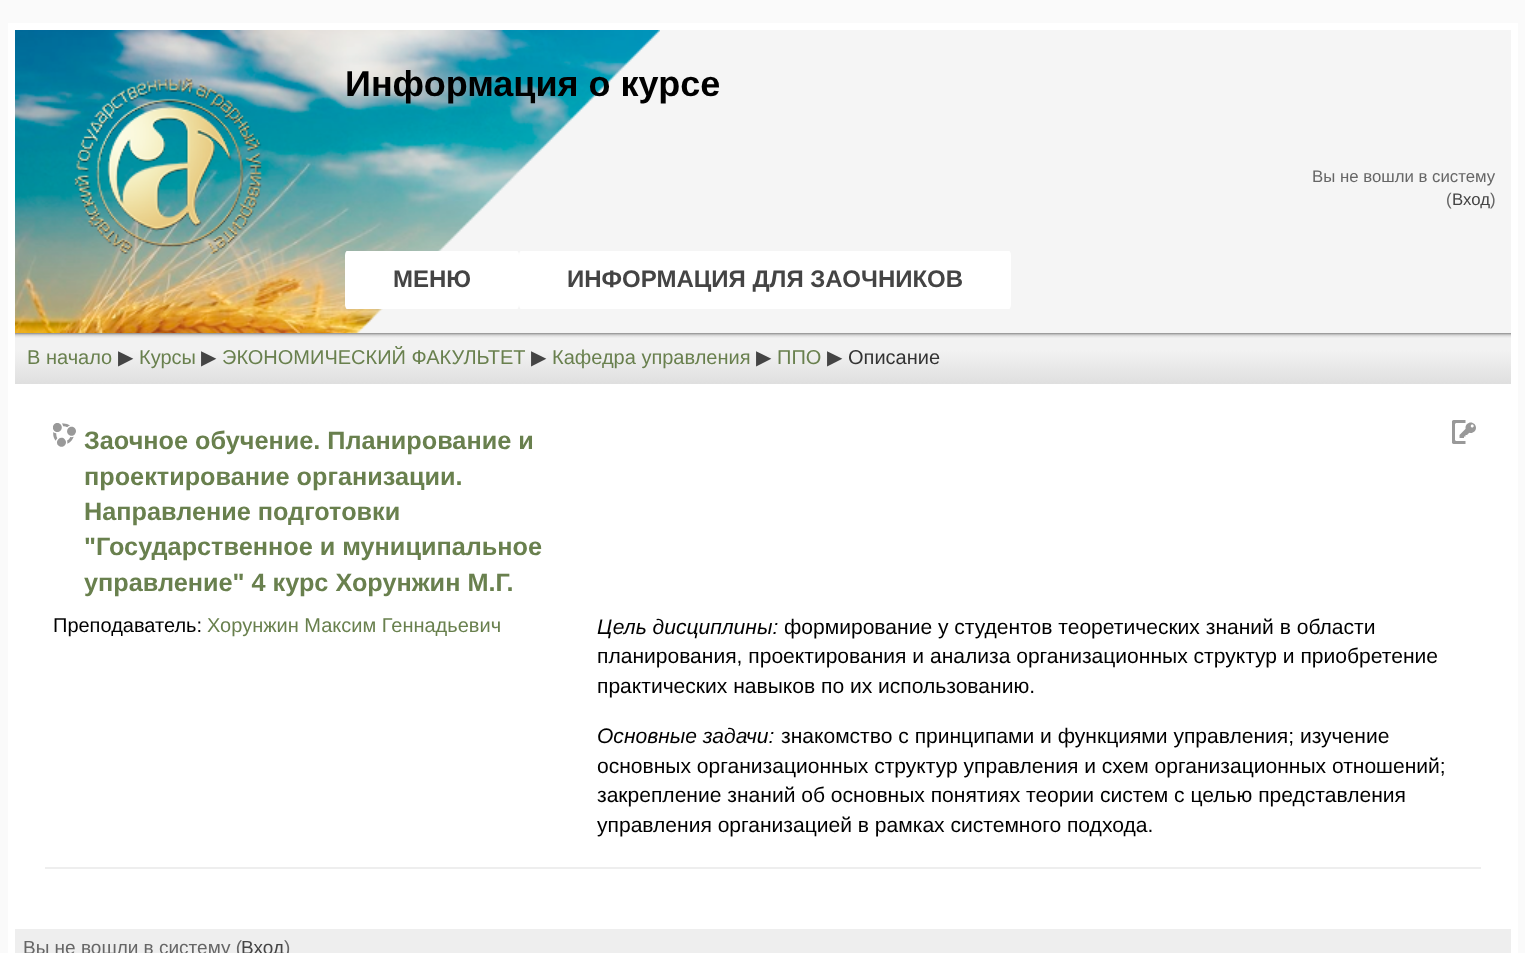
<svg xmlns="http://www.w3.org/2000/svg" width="1525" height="953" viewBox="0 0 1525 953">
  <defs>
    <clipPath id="clip1"><rect x="345" y="251" width="1142" height="58"/></clipPath>
    <linearGradient id="g1" gradientUnits="userSpaceOnUse" x1="763" y1="384" x2="763" y2="333"><stop offset="0" stop-color="rgb(223,223,223)"/><stop offset="0.66" stop-color="rgb(242,242,242)"/><stop offset="0.9" stop-color="rgb(242,242,242)"/><stop offset="0.93" stop-color="rgb(230,230,230)"/><stop offset="0.96" stop-color="rgb(210,210,210)"/><stop offset="1" stop-color="rgb(140,140,140)"/></linearGradient>
  </defs>
  <rect width="100%" height="100%" fill="rgb(250,250,250)"/>
  <rect x="8" y="23" width="1510" height="930" fill="rgb(255,255,255)"/>
  <rect x="356" y="30" width="1155" height="303" fill="rgb(245,245,245)"/>
  <image x="15" y="30" width="645" height="303" href="pic1.png"/>
  <text x="345" y="96" font-family="Liberation Sans" font-size="36" font-weight="bold" fill="rgb(0,0,0)">Информация о курсе</text>
  <g font-family="Liberation Sans" font-size="16.8" fill="rgb(102,102,102)">
    <text x="1312" y="182">Вы не вошли в систему</text>
    <text x="1446" y="205">(</text>
  </g>
  <text x="1452" y="205" font-family="Liberation Sans" font-size="16.8" fill="rgb(68,68,68)">Вход</text>
  <text x="1490" y="205" font-family="Liberation Sans" font-size="16.8" fill="rgb(102,102,102)">)</text>
  <g clip-path="url(#clip1)">
    <rect x="345" y="249" width="174" height="62" rx="6" fill="rgb(255,255,255)"/>
  </g>
  <text x="393" y="287" font-family="Liberation Sans" font-size="24" font-weight="bold" fill="rgb(68,68,68)">МЕНЮ</text>
  <g clip-path="url(#clip1)">
    <rect x="519" y="249" width="492" height="62" rx="6" fill="rgb(255,255,255)"/>
  </g>
  <text x="567" y="287" font-family="Liberation Sans" font-size="24" font-weight="bold" fill="rgb(68,68,68)">ИНФОРМАЦИЯ ДЛЯ ЗАОЧНИКОВ</text>
  <rect x="15" y="333" width="1496" height="51" fill="url(#g1)"/>
  <text x="27" y="364" font-family="Liberation Sans" font-size="20" fill="rgb(105,128,78)">В начало</text>
  <text x="118" y="364" font-family="DejaVu Sans" font-size="20" fill="rgb(68,68,68)">▶</text>
  <text x="139" y="364" font-family="Liberation Sans" font-size="20" fill="rgb(105,128,78)">Курсы</text>
  <text x="201" y="364" font-family="DejaVu Sans" font-size="20" fill="rgb(68,68,68)">▶</text>
  <text x="222" y="364" font-family="Liberation Sans" font-size="20" fill="rgb(105,128,78)">ЭКОНОМИЧЕСКИЙ ФАКУЛЬТЕТ</text>
  <text x="531" y="364" font-family="DejaVu Sans" font-size="20" fill="rgb(68,68,68)">▶</text>
  <text x="552" y="364" font-family="Liberation Sans" font-size="20" fill="rgb(105,128,78)">Кафедра управления</text>
  <text x="756" y="364" font-family="DejaVu Sans" font-size="20" fill="rgb(68,68,68)">▶</text>
  <text x="777" y="364" font-family="Liberation Sans" font-size="20" fill="rgb(105,128,78)">ППО</text>
  <text x="827" y="364" font-family="DejaVu Sans" font-size="20" fill="rgb(68,68,68)">▶</text>
  <text x="848" y="364" font-family="Liberation Sans" font-size="20" fill="rgb(51,51,51)">Описание</text>
  <rect x="45" y="867" width="1436" height="2" fill="rgb(238,238,238)"/>
  <image x="53" y="423" width="23" height="24" href="pic2.png"/>
  <g font-family="Liberation Sans" font-size="25.25" font-weight="bold" fill="rgb(105,128,78)">
    <text>
      <tspan x="84" y="449">Заочное обучение. Планирование и</tspan>
      <tspan x="84" y="485">проектирование организации.</tspan>
      <tspan x="84" y="520">Направление подготовки</tspan>
      <tspan x="84" y="555">"Государственное и муниципальное</tspan>
      <tspan x="84" y="591">управление" 4 курс Хорунжин М.Г.</tspan>
    </text>
  </g>
  <image x="1452" y="420" width="24" height="24" href="pic3.png"/>
  <text x="53" y="632" font-family="Liberation Sans" font-size="20" fill="rgb(0,0,0)">Преподаватель:</text>
  <text x="207" y="632" font-family="Liberation Sans" font-size="20" fill="rgb(105,128,78)">Хорунжин Максим Геннадьевич</text>
  <text x="597" y="634" font-family="Liberation Sans" font-size="21.05" font-style="italic" fill="rgb(0,0,0)">Цель дисциплины:</text>
  <g font-family="Liberation Sans" font-size="21.05" fill="rgb(0,0,0)">
    <text x="784" y="634">формирование у студентов теоретических знаний в области</text>
    <text>
      <tspan x="597" y="663">планирования, проектирования и анализа организационных структур и приобретение</tspan>
      <tspan x="597" y="693">практических навыков по их использованию.</tspan>
    </text>
  </g>
  <text x="597" y="743" font-family="Liberation Sans" font-size="21.05" font-style="italic" fill="rgb(0,0,0)">Основные задачи:</text>
  <g font-family="Liberation Sans" font-size="21.05" fill="rgb(0,0,0)">
    <text x="781" y="743">знакомство с принципами и функциями управления; изучение</text>
    <text>
      <tspan x="597" y="773">основных организационных структур управления и схем организационных отношений;</tspan>
      <tspan x="597" y="802">закрепление знаний об основных понятиях теории систем с целью представления</tspan>
      <tspan x="597" y="832">управления организацией в рамках системного подхода.</tspan>
    </text>
  </g>
  <rect x="15" y="929" width="1496" height="24" fill="rgb(238,238,238)"/>
  <text x="23" y="954" font-family="Liberation Sans" font-size="19" fill="rgb(102,102,102)">Вы не вошли в систему (</text>
  <text x="241" y="954" font-family="Liberation Sans" font-size="19" fill="rgb(68,68,68)">Вход</text>
  <text x="284" y="954" font-family="Liberation Sans" font-size="19" fill="rgb(102,102,102)">)</text>
</svg>
